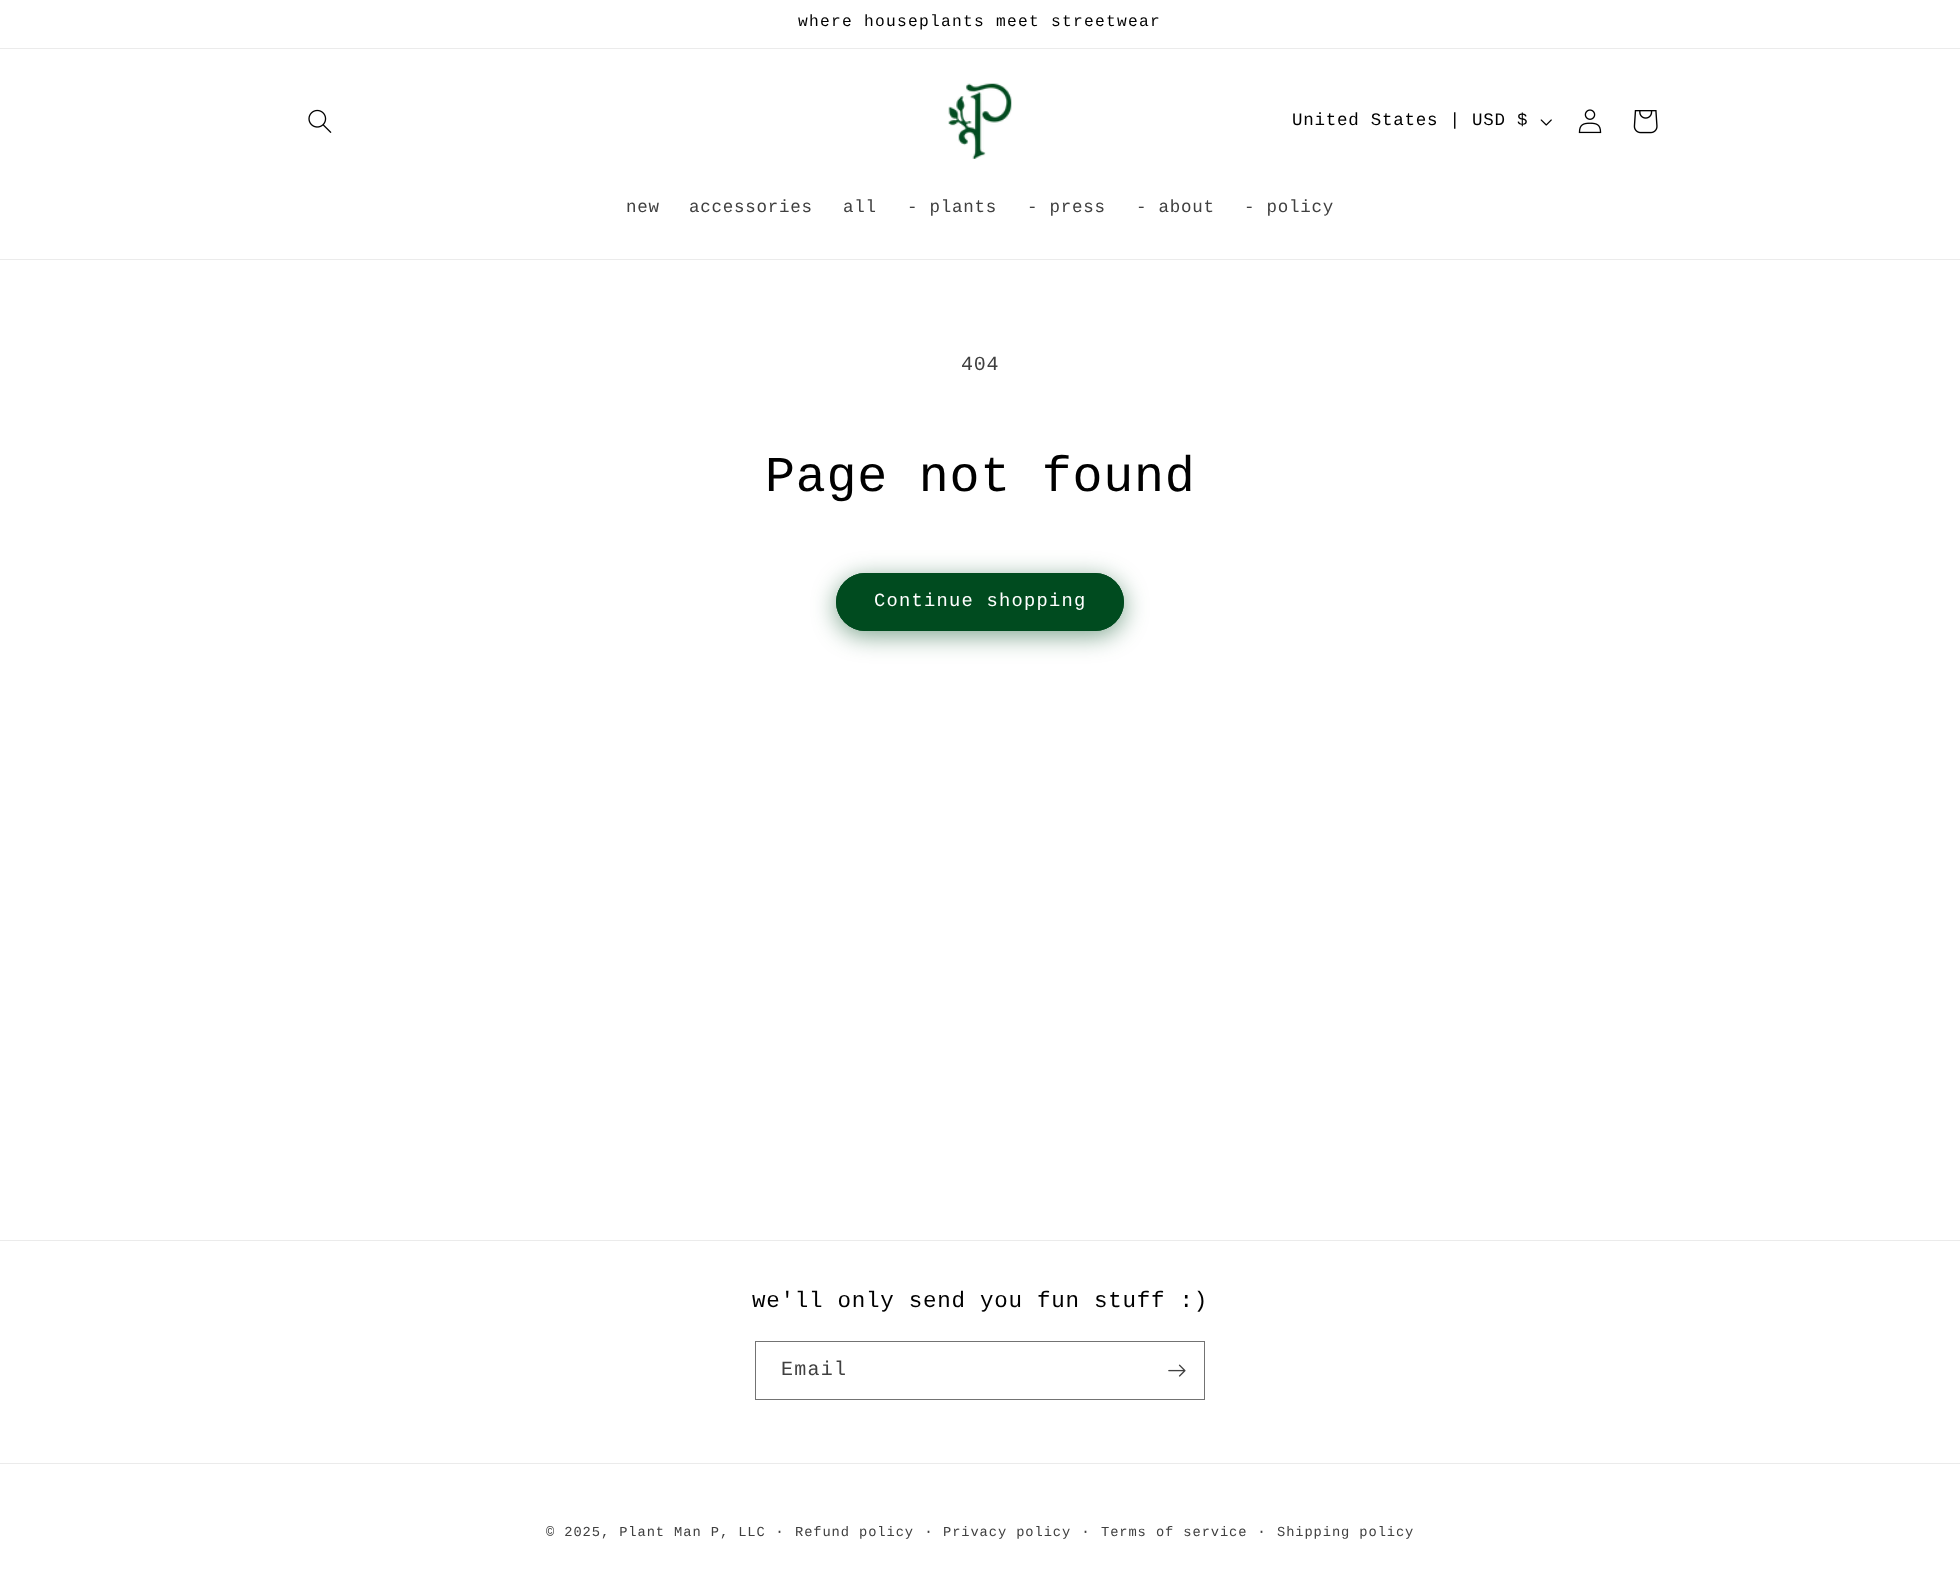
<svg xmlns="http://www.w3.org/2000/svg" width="1960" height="1589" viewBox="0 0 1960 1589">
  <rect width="100%" height="100%" fill="rgb(255,255,255)"/>
  <rect x="0" y="48" width="1960" height="1" fill="rgb(235,235,235)"/>
  <text x="798" y="26" font-family="Liberation Mono" font-size="16.25" letter-spacing="1.25" fill="rgb(0,0,0)">where houseplants meet streetwear</text>
  <rect x="0" y="259" width="1960" height="1" fill="rgb(235,235,235)"/>
  <image x="308" y="109" width="24" height="24" href="pic1.png"/>
  <image x="948" y="83" width="64" height="76" href="pic2.png"/>
  <text x="1292" y="125" font-family="Liberation Mono" font-size="17.5" letter-spacing="0.75" fill="rgb(0,0,0)">United States | USD $</text>
  <image x="1540" y="119" width="12" height="7" href="pic3.png"/>
  <image x="1578" y="109" width="24" height="25" href="pic4.png"/>
  <image x="1633" y="110" width="25" height="24" href="pic5.png"/>
  <g font-family="Liberation Mono" font-size="17.5" letter-spacing="0.75" fill="rgb(64,64,64)">
    <text x="626" y="212">new</text>
    <text x="689" y="212">accessories</text>
    <text x="843" y="212">all</text>
    <text x="907" y="212">- plants</text>
    <text x="1027" y="212">- press</text>
    <text x="1136" y="212">- about</text>
    <text x="1244" y="212">- policy</text>
  </g>
  <text x="961" y="370" font-family="Liberation Mono" font-size="20" letter-spacing="0.75" fill="rgb(64,64,64)">404</text>
  <text x="765" y="491" font-family="Liberation Mono" font-size="50" letter-spacing="0.75" fill="rgb(0,0,0)">Page not found</text>
  <rect x="836" y="578" width="288" height="58" rx="29" fill="rgba(0,75,31,0.5)" filter="blur(12.5px)"/>
  <rect x="836" y="573" width="288" height="58" rx="29" fill="rgb(0,75,31)"/>
  <rect x="836.5" y="573.5" width="287" height="57" rx="28.5" fill="none" stroke="rgb(0,75,31)"/>
  <text x="874" y="606" font-family="Liberation Mono" font-size="18.75" letter-spacing="1.25" fill="rgb(255,255,255)">Continue shopping</text>
  <rect x="0" y="1240" width="1960" height="1" fill="rgb(235,235,235)"/>
  <text x="752" y="1307" font-family="Liberation Mono" font-size="22.5" letter-spacing="0.75" fill="rgb(0,0,0)">we'll only send you fun stuff :)</text>
  <rect x="755.5" y="1341.5" width="449" height="58" fill="none" stroke="rgb(115,115,115)"/>
  <text x="781" y="1375" font-family="Liberation Mono" font-size="20" letter-spacing="1.25" fill="rgb(64,64,64)">Email</text>
  <image x="1168" y="1364" width="18" height="13" href="pic6.png"/>
  <rect x="0" y="1463" width="1960" height="1" fill="rgb(235,235,235)"/>
  <text x="546" y="1536" font-family="Liberation Mono" font-size="13.75" letter-spacing="0.9" fill="rgb(64,64,64)">© 2025, Plant Man P, LLC</text>
  <text x="775" y="1536" font-family="Liberation Mono" font-size="15" letter-spacing="0.9" fill="rgb(64,64,64)">·</text>
  <text x="795" y="1536" font-family="Liberation Mono" font-size="13.75" letter-spacing="0.9" fill="rgb(64,64,64)">Refund policy</text>
  <text x="924" y="1536" font-family="Liberation Mono" font-size="15" letter-spacing="0.9" fill="rgb(64,64,64)">·</text>
  <text x="943" y="1536" font-family="Liberation Mono" font-size="13.75" letter-spacing="0.9" fill="rgb(64,64,64)">Privacy policy</text>
  <text x="1081" y="1536" font-family="Liberation Mono" font-size="15" letter-spacing="0.9" fill="rgb(64,64,64)">·</text>
  <text x="1101" y="1536" font-family="Liberation Mono" font-size="13.75" letter-spacing="0.9" fill="rgb(64,64,64)">Terms of service</text>
  <text x="1257" y="1536" font-family="Liberation Mono" font-size="15" letter-spacing="0.9" fill="rgb(64,64,64)">·</text>
  <text x="1277" y="1536" font-family="Liberation Mono" font-size="13.75" letter-spacing="0.9" fill="rgb(64,64,64)">Shipping policy</text>
</svg>
